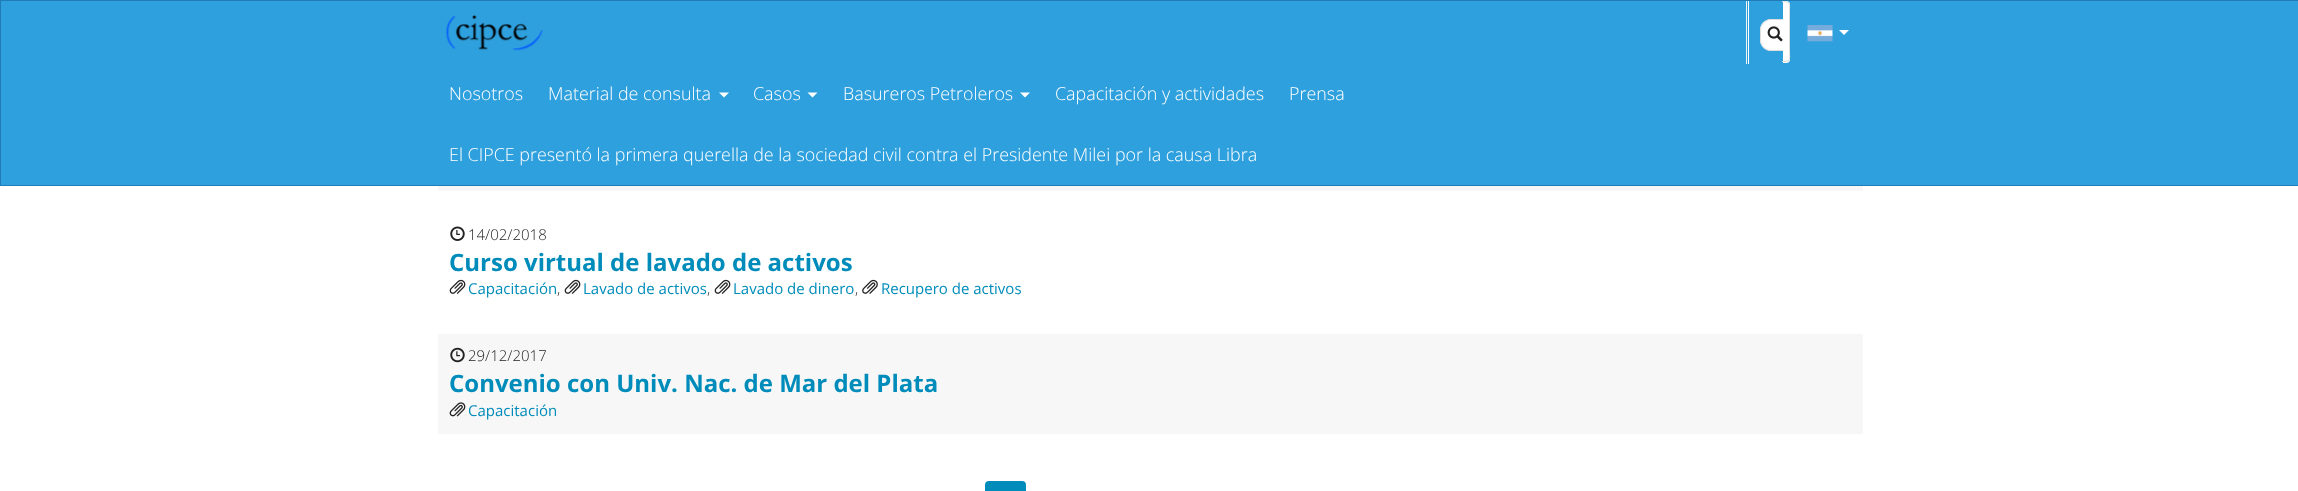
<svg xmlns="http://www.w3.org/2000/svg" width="2298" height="491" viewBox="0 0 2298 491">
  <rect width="100%" height="100%" fill="rgb(255,255,255)"/>
  <rect x="0.5" y="0.5" width="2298" height="185" fill="rgb(47,160,222)" stroke="rgb(32,124,180)"/>
  <image x="446" y="15" width="97" height="36" href="pic1.png"/>
  <rect x="1748" y="1" width="1" height="63" fill="rgb(255,255,255)"/>
  <rect x="1746" y="1" width="1" height="63" fill="rgb(242,242,242)"/>
  <path d="M1771.5 19H1783V51H1771.5C1765 51 1760 46 1760 39.5V30.5C1760 24 1765 19 1771.5 19Z" fill="rgb(255,255,255)"/>
  <path d="M1771 19H1782.5V51H1771C1765 51 1760 46 1760 40V30C1760 24 1765 19 1771 19ZM1771 20H1782.5V50H1771C1765.5 50 1761 45.5 1761 40V30C1761 24.5 1765.5 20 1771 20Z" fill="rgb(221,221,221)" fill-rule="evenodd"/>
  <path d="M1783 1H1786.5C1788.5 1 1790 2.5 1790 4.5V59.5C1790 61.5 1788.5 63 1786.5 63H1783Z" fill="rgb(255,255,255)"/>
  <path d="M1782 1C1792 1 1790 4 1790 14V50C1790 60 1792 62 1782 62ZM1782 2C1791 2 1789 4 1789 14V50C1789 60 1791 61 1782 61Z" fill="rgb(221,221,221)" fill-rule="evenodd"/>
  <image x="1767" y="26" width="16" height="16" href="pic2.png"/>
  <image x="1807" y="25" width="26" height="17" href="pic3.png"/>
  <path d="M1839 30H1849L1844 35Z" fill="rgb(255,255,255)"/>
  <g font-family="Open Sans" font-size="17.9" font-weight="300" fill="rgb(255,255,255)">
    <text x="449" y="100">Nosotros</text>
    <text x="548" y="100">Material de consulta</text>
  </g>
  <path d="M719 92.5H729L724 97.5Z" fill="rgb(255,255,255)"/>
  <text x="753" y="100" font-family="Open Sans" font-size="17.9" font-weight="300" fill="rgb(255,255,255)">Casos</text>
  <path d="M807.5 92.5H817.5L812.5 97.5Z" fill="rgb(255,255,255)"/>
  <text x="843" y="100" font-family="Open Sans" font-size="17.9" font-weight="300" fill="rgb(255,255,255)">Basureros Petroleros</text>
  <path d="M1020 92.5H1030L1025 97.5Z" fill="rgb(255,255,255)"/>
  <g font-family="Open Sans" font-size="17.9" font-weight="300" fill="rgb(255,255,255)">
    <text x="1055" y="100">Capacitación y actividades</text>
    <text x="1289" y="100">Prensa</text>
    <text x="449" y="161">El CIPCE presentó la primera querella de la sociedad civil contra el Presidente Milei por la causa Libra</text>
  </g>
  <rect x="438" y="186" width="1425" height="5" fill="rgb(247,247,247)"/>
  <image x="450" y="226" width="15" height="15" href="pic4.png"/>
  <text x="468" y="240" font-family="Open Sans" font-size="15" font-weight="300" fill="rgb(34,34,34)">14/02/2018</text>
  <text x="449" y="271" font-family="Open Sans" font-size="24" font-weight="bold" fill="rgb(0,140,186)">Curso virtual de lavado de activos</text>
  <image x="449" y="279" width="17" height="15" href="pic5.png"/>
  <text x="468" y="294" font-family="Open Sans" font-size="15" fill="rgb(0,140,186)">Capacitación</text>
  <text x="557" y="294" font-family="Open Sans" font-size="15" font-weight="300" fill="rgb(34,34,34)">,</text>
  <image x="564" y="279" width="17" height="15" href="pic5.png"/>
  <text x="583" y="294" font-family="Open Sans" font-size="15" fill="rgb(0,140,186)">Lavado de activos</text>
  <text x="707" y="294" font-family="Open Sans" font-size="15" font-weight="300" fill="rgb(34,34,34)">,</text>
  <image x="714" y="279" width="17" height="15" href="pic5.png"/>
  <text x="733" y="294" font-family="Open Sans" font-size="15" fill="rgb(0,140,186)">Lavado de dinero</text>
  <text x="855" y="294" font-family="Open Sans" font-size="15" font-weight="300" fill="rgb(34,34,34)">,</text>
  <image x="862" y="279" width="16" height="15" href="pic6.png"/>
  <text x="881" y="294" font-family="Open Sans" font-size="15" fill="rgb(0,140,186)">Recupero de activos</text>
  <rect x="438" y="334" width="1425" height="100" fill="rgb(247,247,247)"/>
  <image x="450" y="347" width="15" height="16" href="pic7.png"/>
  <text x="468" y="361" font-family="Open Sans" font-size="15" font-weight="300" fill="rgb(34,34,34)">29/12/2017</text>
  <text x="449" y="392" font-family="Open Sans" font-size="24" font-weight="bold" fill="rgb(0,140,186)">Convenio con Univ. Nac. de Mar del Plata</text>
  <image x="449" y="402" width="17" height="15" href="pic8.png"/>
  <text x="468" y="416" font-family="Open Sans" font-size="15" fill="rgb(0,140,186)">Capacitación</text>
  <rect x="985" y="481" width="41" height="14" rx="4" fill="rgb(0,140,186)"/>
</svg>
